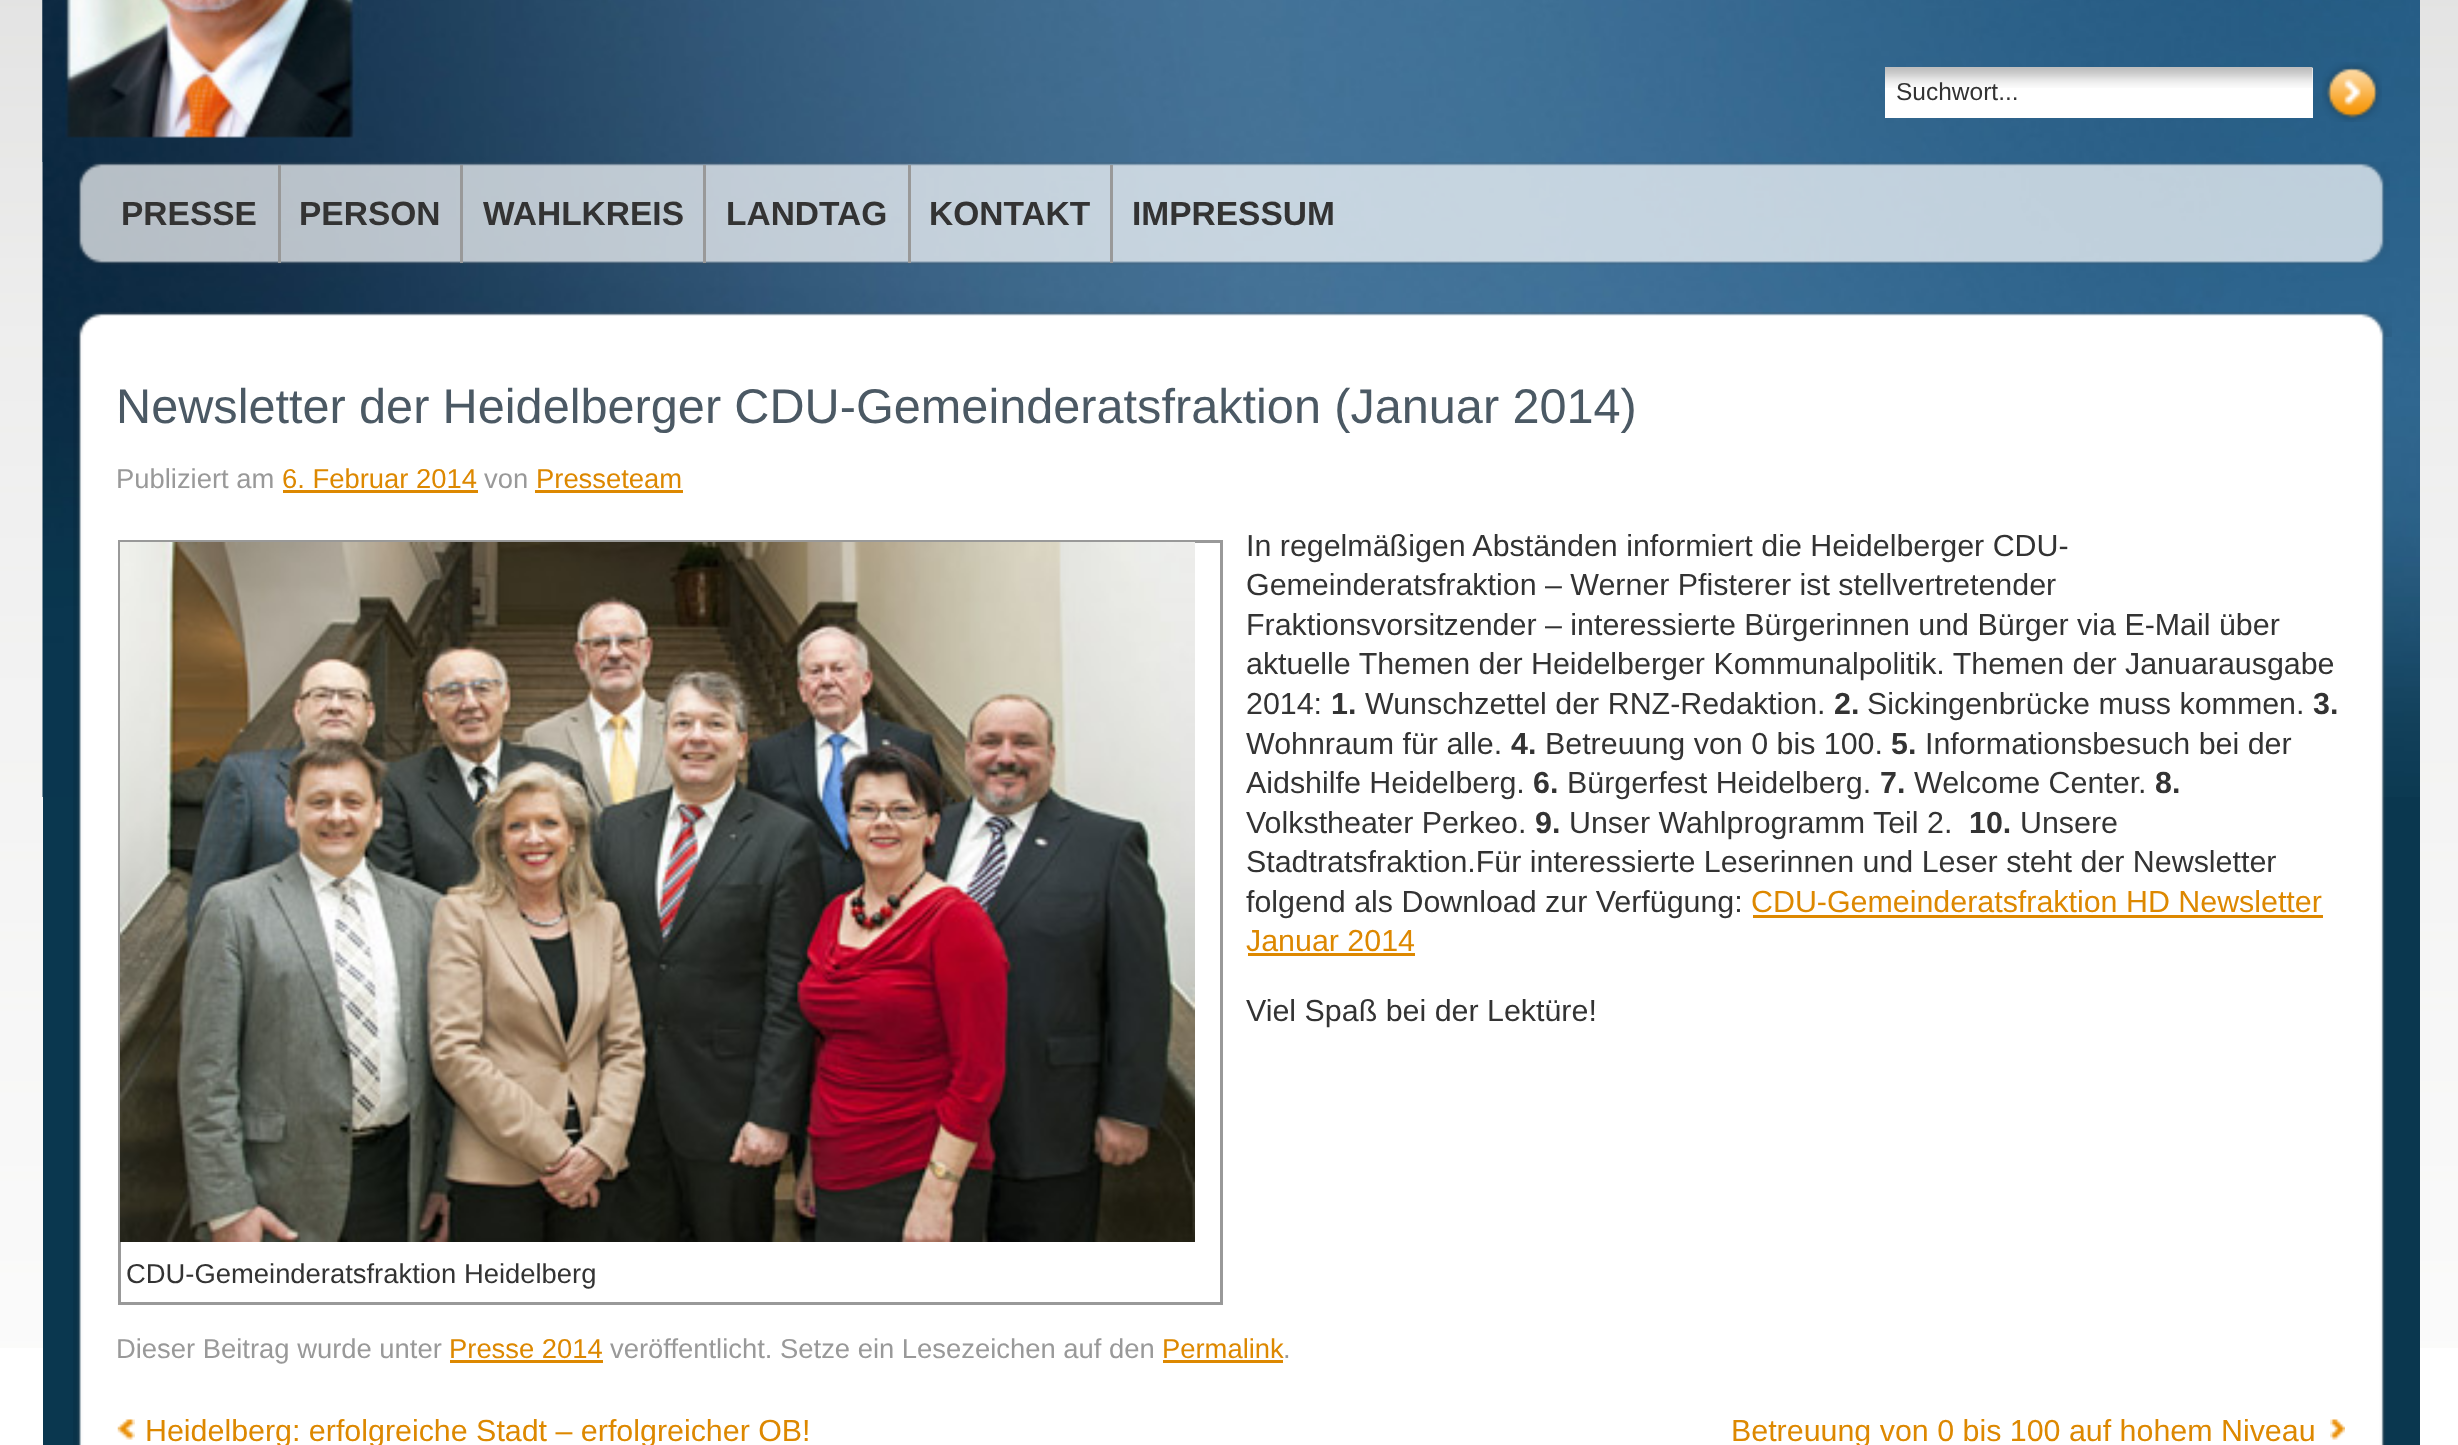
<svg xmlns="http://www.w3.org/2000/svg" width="2458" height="1445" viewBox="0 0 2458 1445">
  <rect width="100%" height="100%" fill="rgb(255,255,255)"/>
  <image x="0" y="0" width="2458" height="1348" href="pic1.png"/>
  <rect x="43" y="797" width="2377" height="648" fill="rgb(10,55,79)"/>
  <image x="42" y="0" width="2378" height="797" href="pic2.png"/>
  <image x="42" y="0" width="320" height="162" href="pic3.png"/>
  <rect x="1885" y="68" width="428" height="50" fill="rgb(255,255,255)"/>
  <image x="1885" y="67" width="428" height="21" href="pic4.png"/>
  <text x="1896" y="100" font-family="Liberation Sans" font-size="24.5" fill="rgb(51,51,51)">Suchwort...</text>
  <image x="2322" y="62" width="60" height="60" href="pic5.png"/>
  <image x="77" y="162" width="2313" height="103" href="pic6.png"/>
  <text x="121" y="225" font-family="Liberation Sans" font-size="33.5" font-weight="bold" fill="rgb(51,51,51)">PRESSE</text>
  <rect x="278" y="165" width="3" height="98" fill="rgb(153,153,153)"/>
  <text x="299" y="225" font-family="Liberation Sans" font-size="33.5" font-weight="bold" fill="rgb(51,51,51)">PERSON</text>
  <rect x="460" y="165" width="3" height="98" fill="rgb(153,153,153)"/>
  <text x="483" y="225" font-family="Liberation Sans" font-size="33.5" font-weight="bold" fill="rgb(51,51,51)">WAHLKREIS</text>
  <rect x="703" y="165" width="3" height="98" fill="rgb(153,153,153)"/>
  <text x="726" y="225" font-family="Liberation Sans" font-size="33.5" font-weight="bold" fill="rgb(51,51,51)">LANDTAG</text>
  <rect x="908" y="165" width="3" height="98" fill="rgb(153,153,153)"/>
  <text x="929" y="225" font-family="Liberation Sans" font-size="33.5" font-weight="bold" fill="rgb(51,51,51)">KONTAKT</text>
  <rect x="1110" y="165" width="3" height="98" fill="rgb(153,153,153)"/>
  <text x="1132" y="225" font-family="Liberation Sans" font-size="33.5" font-weight="bold" fill="rgb(51,51,51)">IMPRESSUM</text>
  <image x="77" y="312" width="2315" height="25" href="pic7.png"/>
  <image x="73" y="337" width="2313" height="1108" href="pic8.png"/>
  <text x="116" y="423" word-spacing="-0.25" font-family="Liberation Sans" font-size="48.65" fill="rgb(75,89,100)">Newsletter der Heidelberger CDU-Gemeinderatsfraktion (Januar 2014)</text>
  <text x="116" y="488" font-family="Liberation Sans" font-size="27.4" fill="rgb(153,153,153)">Publiziert am</text>
  <text x="282" y="488" font-family="Liberation Sans" font-size="27.4" fill="rgb(221,136,0)">6. Februar 2014</text>
  <rect x="283" y="490" width="195" height="3" fill="rgb(221,136,0)"/>
  <text x="484" y="488" font-family="Liberation Sans" font-size="27.4" fill="rgb(153,153,153)">von</text>
  <text x="536" y="488" font-family="Liberation Sans" font-size="27.4" fill="rgb(221,136,0)">Presseteam</text>
  <rect x="535" y="490" width="148" height="3" fill="rgb(221,136,0)"/>
  <g font-family="Liberation Sans" font-size="30.4" fill="rgb(51,51,51)">
    <text>
      <tspan x="1246" y="556">In regelmäßigen Abständen informiert die Heidelberger CDU-</tspan>
      <tspan x="1246" y="595">Gemeinderatsfraktion – Werner Pfisterer ist stellvertretender</tspan>
      <tspan x="1246" y="635">Fraktionsvorsitzender – interessierte Bürgerinnen und Bürger via E-Mail über</tspan>
      <tspan x="1246" y="674">aktuelle Themen der Heidelberger Kommunalpolitik. Themen der Januarausgabe</tspan>
      <tspan x="1246" y="714">2014:</tspan>
    </text>
  </g>
  <text x="1331" y="714" font-family="Liberation Sans" font-size="30.4" font-weight="bold" fill="rgb(51,51,51)">1.</text>
  <text x="1365" y="714" font-family="Liberation Sans" font-size="30.4" fill="rgb(51,51,51)">Wunschzettel der RNZ-Redaktion.</text>
  <text x="1834" y="714" font-family="Liberation Sans" font-size="30.4" font-weight="bold" fill="rgb(51,51,51)">2.</text>
  <text x="1867" y="714" font-family="Liberation Sans" font-size="30.4" fill="rgb(51,51,51)">Sickingenbrücke muss kommen.</text>
  <text x="2313" y="714" font-family="Liberation Sans" font-size="30.4" font-weight="bold" fill="rgb(51,51,51)">3.</text>
  <text x="1246" y="754" font-family="Liberation Sans" font-size="30.4" fill="rgb(51,51,51)">Wohnraum für alle.</text>
  <text x="1511" y="754" font-family="Liberation Sans" font-size="30.4" font-weight="bold" fill="rgb(51,51,51)">4.</text>
  <text x="1545" y="754" font-family="Liberation Sans" font-size="30.4" fill="rgb(51,51,51)">Betreuung von 0 bis 100.</text>
  <text x="1891" y="754" font-family="Liberation Sans" font-size="30.4" font-weight="bold" fill="rgb(51,51,51)">5.</text>
  <g font-family="Liberation Sans" font-size="30.4" fill="rgb(51,51,51)">
    <text x="1925" y="754">Informationsbesuch bei der</text>
    <text x="1246" y="793">Aidshilfe Heidelberg.</text>
  </g>
  <text x="1533" y="793" font-family="Liberation Sans" font-size="30.4" font-weight="bold" fill="rgb(51,51,51)">6.</text>
  <text x="1567" y="793" font-family="Liberation Sans" font-size="30.4" fill="rgb(51,51,51)">Bürgerfest Heidelberg.</text>
  <text x="1880" y="793" font-family="Liberation Sans" font-size="30.4" font-weight="bold" fill="rgb(51,51,51)">7.</text>
  <text x="1914" y="793" font-family="Liberation Sans" font-size="30.4" fill="rgb(51,51,51)">Welcome Center.</text>
  <text x="2155" y="793" font-family="Liberation Sans" font-size="30.4" font-weight="bold" fill="rgb(51,51,51)">8.</text>
  <text x="1246" y="833" font-family="Liberation Sans" font-size="30.4" fill="rgb(51,51,51)">Volkstheater Perkeo.</text>
  <text x="1535" y="833" font-family="Liberation Sans" font-size="30.4" font-weight="bold" fill="rgb(51,51,51)">9.</text>
  <text x="1569" y="833" font-family="Liberation Sans" font-size="30.4" fill="rgb(51,51,51)">Unser Wahlprogramm Teil 2.</text>
  <text x="1969" y="833" font-family="Liberation Sans" font-size="30.4" font-weight="bold" fill="rgb(51,51,51)">10.</text>
  <g font-family="Liberation Sans" font-size="30.4" fill="rgb(51,51,51)">
    <text x="2020" y="833">Unsere</text>
    <text>
      <tspan x="1246" y="872">Stadtratsfraktion.Für interessierte Leserinnen und Leser steht der Newsletter</tspan>
      <tspan x="1246" y="912">folgend als Download zur Verfügung:</tspan>
    </text>
  </g>
  <text x="1751" y="912" font-family="Liberation Sans" font-size="30.4" fill="rgb(221,136,0)">CDU-Gemeinderatsfraktion HD Newsletter</text>
  <rect x="1753" y="915" width="570" height="3" fill="rgb(221,136,0)"/>
  <text x="1246" y="951" font-family="Liberation Sans" font-size="30.4" fill="rgb(221,136,0)">Januar 2014</text>
  <rect x="1248" y="953" width="167" height="3" fill="rgb(221,136,0)"/>
  <text x="1246" y="1021" font-family="Liberation Sans" font-size="30.4" fill="rgb(51,51,51)">Viel Spaß bei der Lektüre!</text>
  <rect x="119.5" y="541.5" width="1102" height="762" fill="none" stroke="rgb(153,153,153)" stroke-width="3"/>
  <image x="120" y="542" width="1075" height="700" href="pic9.png"/>
  <text x="126" y="1283" font-family="Liberation Sans" font-size="27.4" fill="rgb(51,51,51)">CDU-Gemeinderatsfraktion Heidelberg</text>
  <text x="116" y="1358" font-family="Liberation Sans" font-size="27.4" fill="rgb(153,153,153)">Dieser Beitrag wurde unter</text>
  <text x="449" y="1358" font-family="Liberation Sans" font-size="27.4" fill="rgb(221,136,0)">Presse 2014</text>
  <rect x="450" y="1360" width="153" height="3" fill="rgb(221,136,0)"/>
  <text x="610" y="1358" font-family="Liberation Sans" font-size="27.4" fill="rgb(153,153,153)">veröffentlicht. Setze ein Lesezeichen auf den</text>
  <text x="1162" y="1358" font-family="Liberation Sans" font-size="27.4" fill="rgb(221,136,0)">Permalink</text>
  <rect x="1163" y="1360" width="120" height="3" fill="rgb(221,136,0)"/>
  <text x="1283" y="1358" font-family="Liberation Sans" font-size="27.4" fill="rgb(153,153,153)">.</text>
  <image x="117" y="1419" width="18" height="21" href="pic10.png"/>
  <g font-family="Liberation Sans" font-size="30.4" fill="rgb(221,136,0)">
    <text x="145" y="1441">Heidelberg: erfolgreiche Stadt – erfolgreicher OB!</text>
    <text x="1731" y="1441">Betreuung von 0 bis 100 auf hohem Niveau</text>
  </g>
  <image x="2330" y="1419" width="15" height="21" href="pic11.png"/>
</svg>
